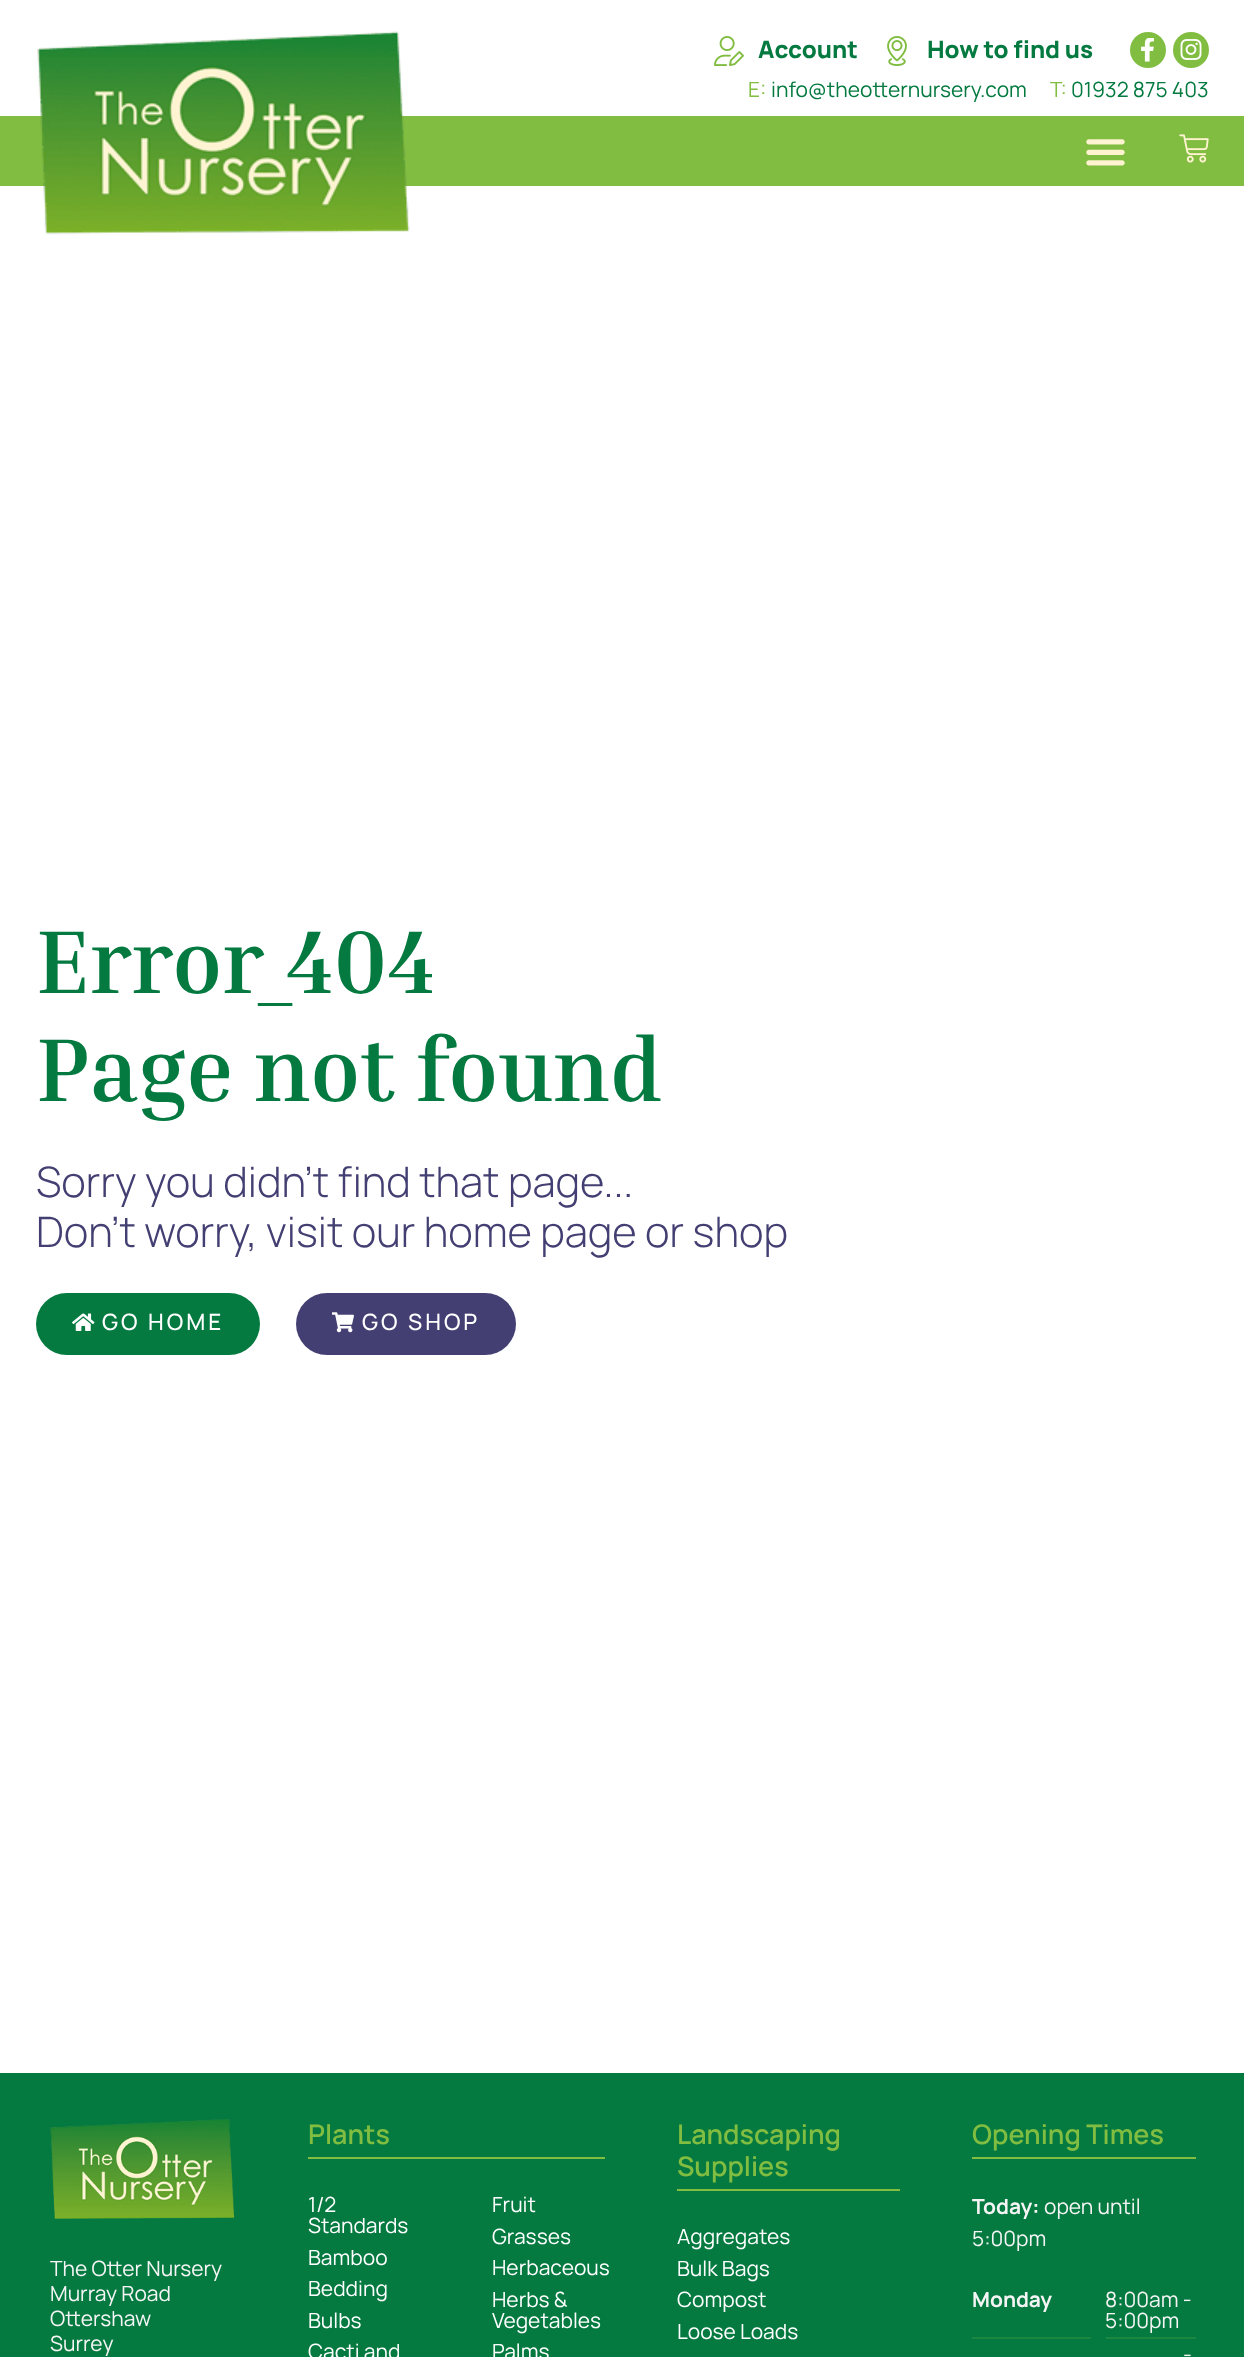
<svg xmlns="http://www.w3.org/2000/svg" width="1244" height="2357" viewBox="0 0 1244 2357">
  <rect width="100%" height="100%" fill="rgb(255,255,255)"/>
  <rect x="0" y="116" width="1244" height="70" fill="rgb(129,189,65)"/>
  <image x="37" y="31" width="373" height="204" href="pic1.png"/>
  <image x="714" y="36" width="30" height="30" href="pic2.png"/>
  <text x="758" y="58" font-family="Manrope" font-size="24" font-weight="800" fill="rgb(4,122,64)">Account</text>
  <image x="887" y="36" width="20" height="30" href="pic3.png"/>
  <text x="927" y="58" font-family="Manrope" font-size="24" font-weight="800" fill="rgb(4,122,64)">How to find us</text>
  <circle cx="1148" cy="50" r="18" fill="rgb(129,189,65)"/>
  <image x="1141" y="38" width="13" height="24" href="pic4.png"/>
  <circle cx="1191" cy="50" r="18" fill="rgb(129,189,65)"/>
  <image x="1180" y="39" width="22" height="21" href="pic5.png"/>
  <text x="748" y="97" font-family="Manrope" font-size="21" fill="rgb(129,189,65)">E:</text>
  <text x="771" y="97" font-family="Manrope" font-size="21" fill="rgb(4,122,64)">info@theotternursery.com</text>
  <text x="1050" y="97" font-family="Manrope" font-size="21" fill="rgb(129,189,65)">T:</text>
  <text x="1071" y="97" font-family="Manrope" font-size="21" fill="rgb(4,122,64)">01932 875 403</text>
  <image x="1086" y="139" width="39" height="27" href="pic6.png"/>
  <image x="1179" y="134" width="30" height="29" href="pic7.png"/>
  <g font-family="Inria Serif" font-size="90" font-weight="bold" fill="rgb(4,122,64)">
    <text>
      <tspan x="36" y="993">Error_404</tspan>
      <tspan x="36" y="1101">Page not found</tspan>
    </text>
  </g>
  <g font-family="Manrope" font-size="42" font-weight="300" fill="rgb(67,63,114)">
    <text>
      <tspan x="36" y="1197">Sorry you didn’t find that page...</tspan>
      <tspan x="36" y="1247">Don’t worry, visit our home page or shop</tspan>
    </text>
  </g>
  <rect x="36" y="1293" width="224" height="62" rx="31" fill="rgb(4,122,64)"/>
  <image x="72" y="1313" width="23" height="18" href="pic8.png"/>
  <text x="102" y="1330" font-family="Manrope" font-size="22.5" font-weight="500" letter-spacing="3" fill="rgb(255,255,255)">GO HOME</text>
  <rect x="296" y="1293" width="220" height="62" rx="31" fill="rgb(67,63,114)"/>
  <image x="332" y="1312" width="22" height="21" href="pic9.png"/>
  <text x="362" y="1330" font-family="Manrope" font-size="22.5" font-weight="500" letter-spacing="3" fill="rgb(255,255,255)">GO SHOP</text>
  <rect x="0" y="2073" width="1244" height="284" fill="rgb(4,122,64)"/>
  <image x="50" y="2119" width="185" height="100" href="pic10.png"/>
  <g font-family="Manrope" font-size="21" fill="rgb(245,245,245)">
    <text>
      <tspan x="50" y="2276">The Otter Nursery</tspan>
      <tspan x="50" y="2301">Murray Road</tspan>
      <tspan x="50" y="2326">Ottershaw</tspan>
      <tspan x="50" y="2351">Surrey</tspan>
    </text>
  </g>
  <rect x="308" y="2157" width="297" height="2" fill="rgb(129,189,65)"/>
  <text x="308" y="2144" font-family="Manrope" font-size="27" font-weight="600" fill="rgb(129,189,65)">Plants</text>
  <g font-family="Manrope" font-size="21" fill="rgb(255,255,255)">
    <text>
      <tspan x="308" y="2212">1/2</tspan>
      <tspan x="308" y="2233">Standards</tspan>
    </text>
    <text>
      <tspan x="492" y="2212">Fruit</tspan>
      <tspan x="492" y="2244">Grasses</tspan>
    </text>
    <text x="308" y="2265">Bamboo</text>
    <text x="492" y="2275">Herbaceous</text>
    <text x="308" y="2296">Bedding</text>
    <text>
      <tspan x="492" y="2307">Herbs &amp;</tspan>
      <tspan x="492" y="2328">Vegetables</tspan>
    </text>
    <text>
      <tspan x="308" y="2328">Bulbs</tspan>
      <tspan x="308" y="2359">Cacti and</tspan>
    </text>
    <text x="492" y="2359">Palms</text>
  </g>
  <rect x="677" y="2189" width="223" height="2" fill="rgb(129,189,65)"/>
  <g font-family="Manrope" font-size="27" font-weight="600" fill="rgb(129,189,65)">
    <text>
      <tspan x="677" y="2144">Landscaping</tspan>
      <tspan x="677" y="2176">Supplies</tspan>
    </text>
  </g>
  <g font-family="Manrope" font-size="21" fill="rgb(255,255,255)">
    <text>
      <tspan x="677" y="2244">Aggregates</tspan>
      <tspan x="677" y="2276">Bulk Bags</tspan>
      <tspan x="677" y="2307">Compost</tspan>
      <tspan x="677" y="2339">Loose Loads</tspan>
    </text>
  </g>
  <rect x="972" y="2157" width="224" height="2" fill="rgb(129,189,65)"/>
  <text x="972" y="2144" font-family="Manrope" font-size="27" font-weight="600" fill="rgb(129,189,65)">Opening Times</text>
  <text x="972" y="2214" font-family="Manrope" font-size="21" font-weight="bold" fill="rgb(245,245,245)">Today:</text>
  <g font-family="Manrope" font-size="21" fill="rgb(245,245,245)">
    <text x="1044" y="2214">open until</text>
    <text x="972" y="2246">5:00pm</text>
  </g>
  <rect x="972" y="2337" width="119" height="2" fill="rgb(28,135,64)"/>
  <text x="972" y="2307" font-family="Manrope" font-size="21" font-weight="bold" fill="rgb(245,245,245)">Monday</text>
  <rect x="1106" y="2337" width="90" height="2" fill="rgb(28,135,64)"/>
  <g font-family="Manrope" font-size="21" fill="rgb(245,245,245)">
    <text>
      <tspan x="1105" y="2307">8:00am -</tspan>
      <tspan x="1105" y="2328">5:00pm</tspan>
    </text>
    <text x="1183" y="2362">-</text>
  </g>
</svg>
